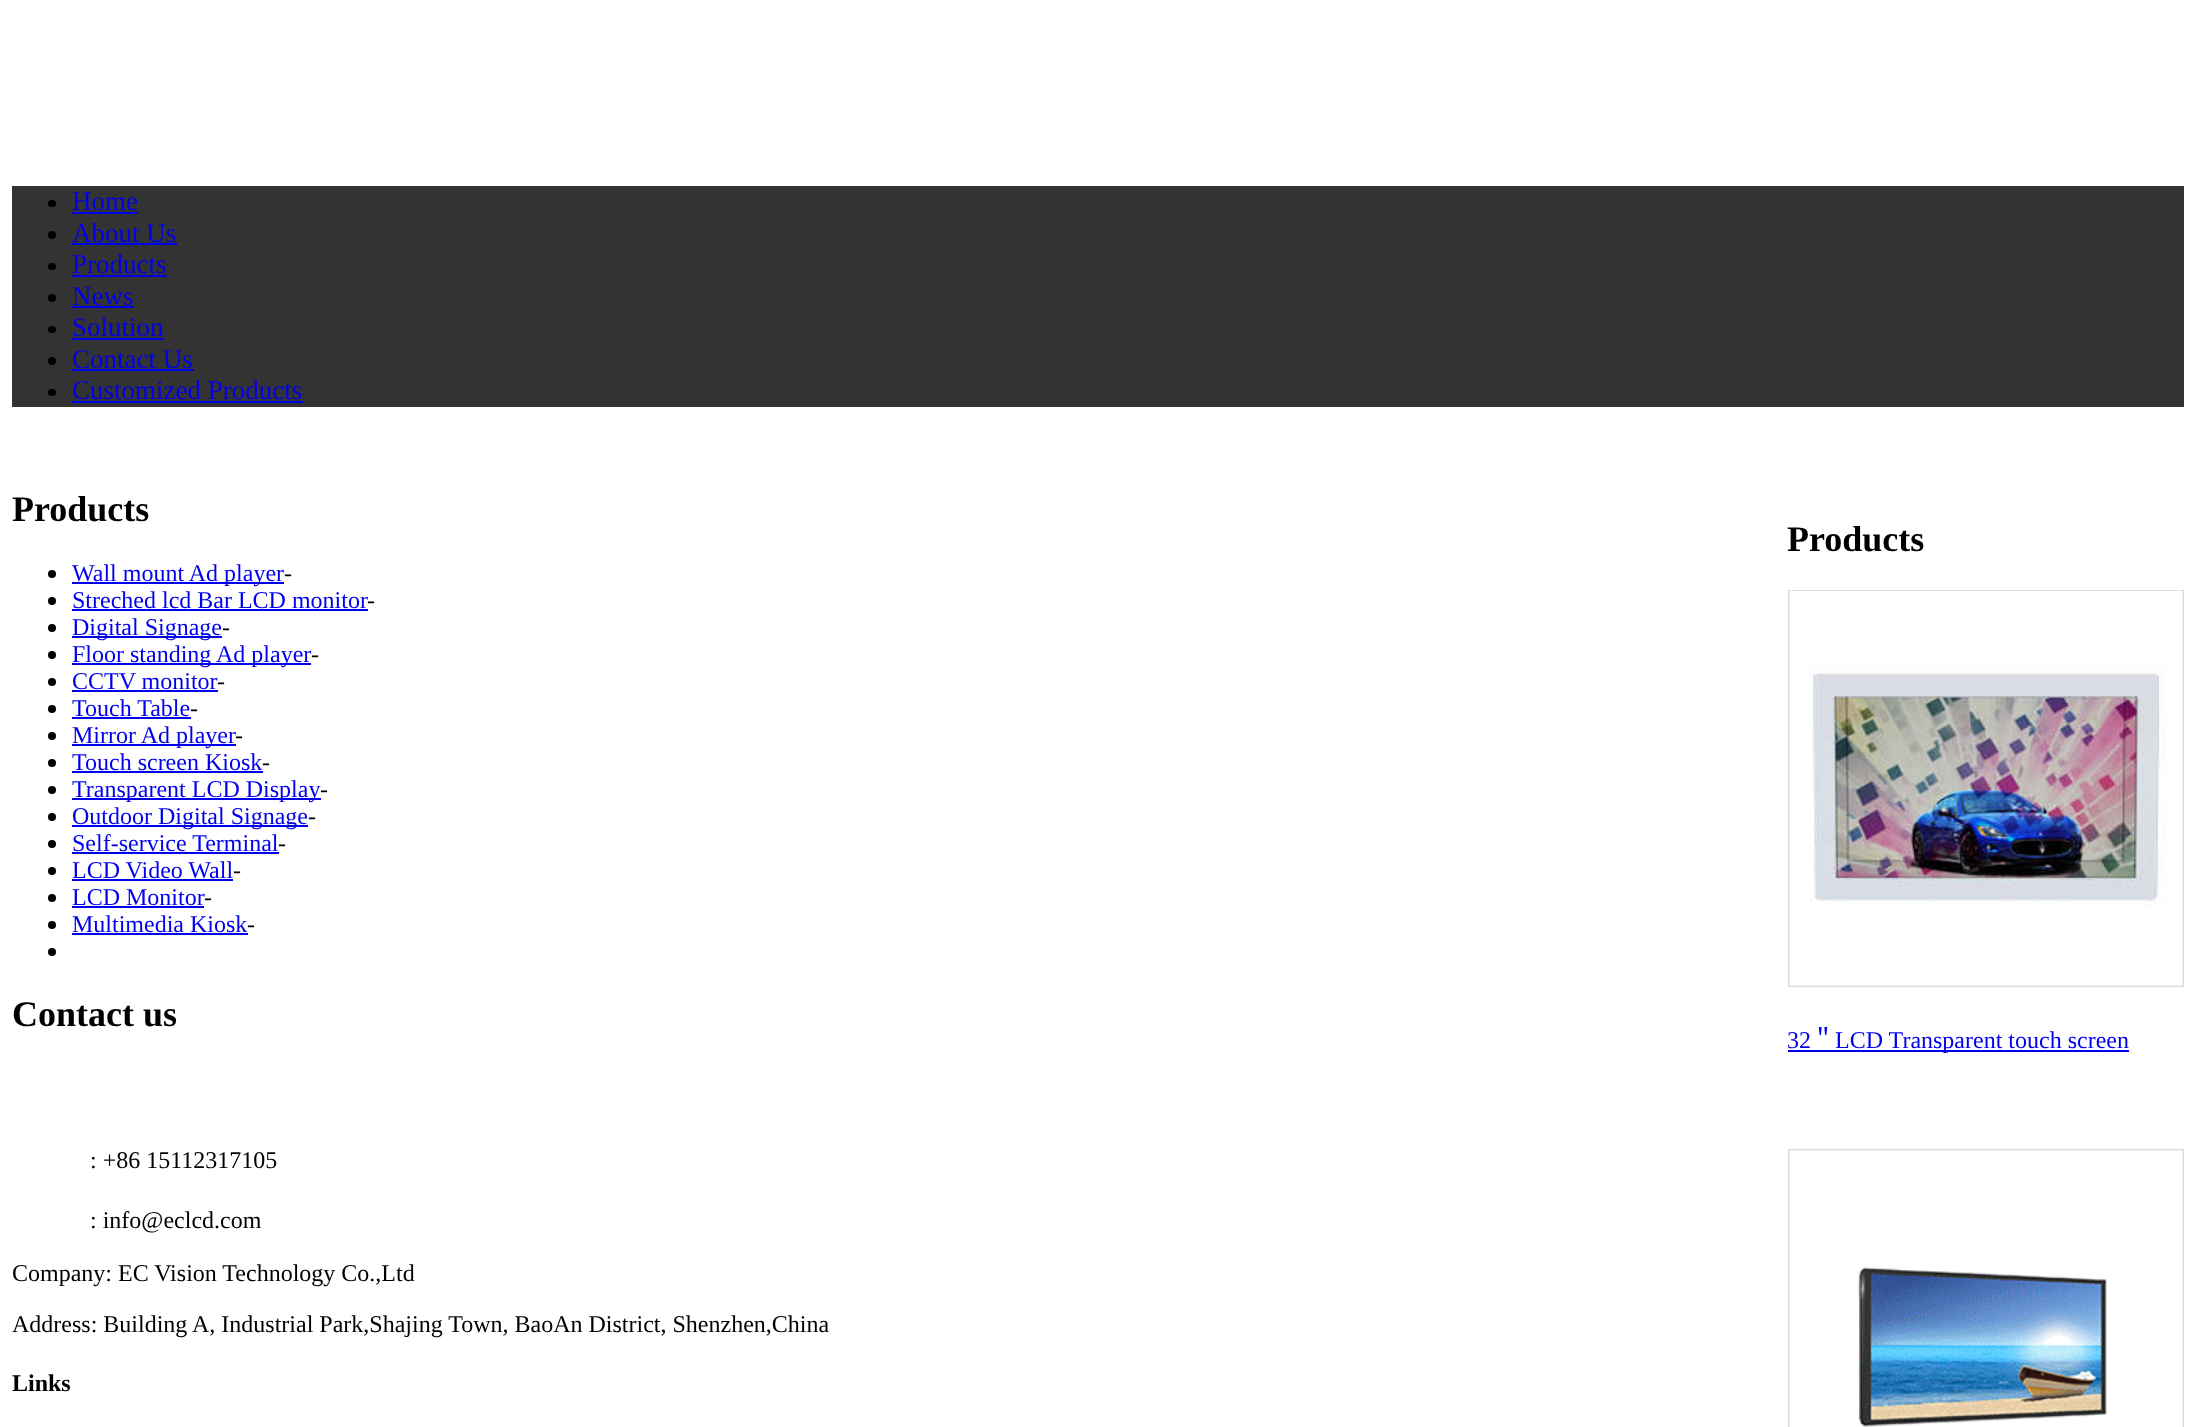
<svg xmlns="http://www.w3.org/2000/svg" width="2196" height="1427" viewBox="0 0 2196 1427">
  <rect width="100%" height="100%" fill="rgb(255,255,255)"/>
  <rect x="12" y="186" width="2172" height="221" fill="rgb(51,51,51)"/>
  <rect x="48" y="200" width="8" height="7" rx="3.5" fill="rgb(0,0,0)"/>
  <text x="72" y="210" font-family="Liberation Serif" font-size="27" fill="rgb(0,0,238)">Home</text>
  <rect x="72" y="212" width="66" height="2" fill="rgb(0,0,238)"/>
  <circle cx="52" cy="235" r="4" fill="rgb(0,0,0)"/>
  <text x="72" y="242" font-family="Liberation Serif" font-size="27" fill="rgb(0,0,238)">About Us</text>
  <rect x="72" y="243" width="105" height="2" fill="rgb(0,0,238)"/>
  <rect x="48" y="263" width="8" height="7" rx="3.5" fill="rgb(0,0,0)"/>
  <text x="72" y="273" font-family="Liberation Serif" font-size="27" fill="rgb(0,0,238)">Products</text>
  <rect x="72" y="275" width="95" height="2" fill="rgb(0,0,238)"/>
  <circle cx="52" cy="298" r="4" fill="rgb(0,0,0)"/>
  <text x="72" y="305" font-family="Liberation Serif" font-size="27" fill="rgb(0,0,238)">News</text>
  <rect x="72" y="306" width="62" height="2" fill="rgb(0,0,238)"/>
  <rect x="48" y="326" width="8" height="7" rx="3.5" fill="rgb(0,0,0)"/>
  <text x="72" y="336" font-family="Liberation Serif" font-size="27" fill="rgb(0,0,238)">Solution</text>
  <rect x="72" y="338" width="92" height="2" fill="rgb(0,0,238)"/>
  <circle cx="52" cy="361" r="4" fill="rgb(0,0,0)"/>
  <text x="72" y="368" font-family="Liberation Serif" font-size="27" fill="rgb(0,0,238)">Contact Us</text>
  <rect x="72" y="369" width="122" height="2" fill="rgb(0,0,238)"/>
  <rect x="48" y="389" width="8" height="7" rx="3.5" fill="rgb(0,0,0)"/>
  <text x="72" y="399" font-family="Liberation Serif" font-size="27" fill="rgb(0,0,238)">Customized Products</text>
  <rect x="72" y="401" width="231" height="2" fill="rgb(0,0,238)"/>
  <text x="12" y="521" font-family="Liberation Serif" font-size="36" font-weight="bold" fill="rgb(0,0,0)">Products</text>
  <circle cx="52" cy="574" r="4" fill="rgb(0,0,0)"/>
  <rect x="72" y="582" width="212" height="2" fill="rgb(0,0,238)"/>
  <text x="72" y="581" font-family="Liberation Serif" font-size="24" fill="rgb(0,0,238)">Wall mount Ad player</text>
  <text x="284" y="581" font-family="Liberation Serif" font-size="24" fill="rgb(0,0,0)">-</text>
  <circle cx="52" cy="601" r="4" fill="rgb(0,0,0)"/>
  <text x="72" y="608" font-family="Liberation Serif" font-size="24" fill="rgb(0,0,238)">Streched lcd Bar LCD monitor</text>
  <rect x="72" y="609" width="296" height="2" fill="rgb(0,0,238)"/>
  <text x="367" y="608" font-family="Liberation Serif" font-size="24" fill="rgb(0,0,0)">-</text>
  <circle cx="52" cy="628" r="4" fill="rgb(0,0,0)"/>
  <rect x="72" y="636" width="150" height="2" fill="rgb(0,0,238)"/>
  <text x="72" y="635" font-family="Liberation Serif" font-size="24" fill="rgb(0,0,238)">Digital Signage</text>
  <text x="222" y="635" font-family="Liberation Serif" font-size="24" fill="rgb(0,0,0)">-</text>
  <circle cx="52" cy="655" r="4" fill="rgb(0,0,0)"/>
  <rect x="72" y="663" width="239" height="2" fill="rgb(0,0,238)"/>
  <text x="72" y="662" font-family="Liberation Serif" font-size="24" fill="rgb(0,0,238)">Floor standing Ad player</text>
  <text x="311" y="662" font-family="Liberation Serif" font-size="24" fill="rgb(0,0,0)">-</text>
  <circle cx="52" cy="682" r="4" fill="rgb(0,0,0)"/>
  <text x="72" y="689" font-family="Liberation Serif" font-size="24" fill="rgb(0,0,238)">CCTV monitor</text>
  <rect x="72" y="690" width="146" height="2" fill="rgb(0,0,238)"/>
  <text x="217" y="689" font-family="Liberation Serif" font-size="24" fill="rgb(0,0,0)">-</text>
  <circle cx="52" cy="709" r="4" fill="rgb(0,0,0)"/>
  <text x="72" y="716" font-family="Liberation Serif" font-size="24" fill="rgb(0,0,238)">Touch Table</text>
  <rect x="72" y="717" width="119" height="2" fill="rgb(0,0,238)"/>
  <text x="190" y="716" font-family="Liberation Serif" font-size="24" fill="rgb(0,0,0)">-</text>
  <circle cx="52" cy="736" r="4" fill="rgb(0,0,0)"/>
  <rect x="72" y="744" width="164" height="2" fill="rgb(0,0,238)"/>
  <text x="72" y="743" font-family="Liberation Serif" font-size="24" fill="rgb(0,0,238)">Mirror Ad player</text>
  <text x="235" y="743" font-family="Liberation Serif" font-size="24" fill="rgb(0,0,0)">-</text>
  <circle cx="52" cy="763" r="4" fill="rgb(0,0,0)"/>
  <text x="72" y="770" font-family="Liberation Serif" font-size="24" fill="rgb(0,0,238)">Touch screen Kiosk</text>
  <rect x="72" y="771" width="191" height="2" fill="rgb(0,0,238)"/>
  <text x="262" y="770" font-family="Liberation Serif" font-size="24" fill="rgb(0,0,0)">-</text>
  <circle cx="52" cy="790" r="4" fill="rgb(0,0,0)"/>
  <rect x="72" y="798" width="249" height="2" fill="rgb(0,0,238)"/>
  <text x="72" y="797" font-family="Liberation Serif" font-size="24" fill="rgb(0,0,238)">Transparent LCD Display</text>
  <text x="320" y="797" font-family="Liberation Serif" font-size="24" fill="rgb(0,0,0)">-</text>
  <circle cx="52" cy="817" r="4" fill="rgb(0,0,0)"/>
  <rect x="72" y="825" width="236" height="2" fill="rgb(0,0,238)"/>
  <text x="72" y="824" font-family="Liberation Serif" font-size="24" fill="rgb(0,0,238)">Outdoor Digital Signage</text>
  <text x="308" y="824" font-family="Liberation Serif" font-size="24" fill="rgb(0,0,0)">-</text>
  <circle cx="52" cy="844" r="4" fill="rgb(0,0,0)"/>
  <text x="72" y="851" font-family="Liberation Serif" font-size="24" fill="rgb(0,0,238)">Self-service Terminal</text>
  <rect x="72" y="852" width="207" height="2" fill="rgb(0,0,238)"/>
  <text x="278" y="851" font-family="Liberation Serif" font-size="24" fill="rgb(0,0,0)">-</text>
  <circle cx="52" cy="871" r="4" fill="rgb(0,0,0)"/>
  <text x="72" y="878" font-family="Liberation Serif" font-size="24" fill="rgb(0,0,238)">LCD Video Wall</text>
  <rect x="72" y="879" width="161" height="2" fill="rgb(0,0,238)"/>
  <text x="233" y="878" font-family="Liberation Serif" font-size="24" fill="rgb(0,0,0)">-</text>
  <circle cx="52" cy="898" r="4" fill="rgb(0,0,0)"/>
  <text x="72" y="905" font-family="Liberation Serif" font-size="24" fill="rgb(0,0,238)">LCD Monitor</text>
  <rect x="72" y="906" width="132" height="2" fill="rgb(0,0,238)"/>
  <text x="204" y="905" font-family="Liberation Serif" font-size="24" fill="rgb(0,0,0)">-</text>
  <circle cx="52" cy="925" r="4" fill="rgb(0,0,0)"/>
  <text x="72" y="932" font-family="Liberation Serif" font-size="24" fill="rgb(0,0,238)">Multimedia Kiosk</text>
  <rect x="72" y="933" width="176" height="2" fill="rgb(0,0,238)"/>
  <text x="247" y="932" font-family="Liberation Serif" font-size="24" fill="rgb(0,0,0)">-</text>
  <circle cx="52" cy="952" r="4" fill="rgb(0,0,0)"/>
  <text x="12" y="1026" font-family="Liberation Serif" font-size="36" font-weight="bold" fill="rgb(0,0,0)">Contact us</text>
  <g font-family="Liberation Serif" font-size="24" fill="rgb(0,0,0)">
    <text x="90" y="1168">: +86 15112317105</text>
    <text x="90" y="1228">: info@eclcd.com</text>
    <text x="12" y="1281">Company: EC Vision Technology Co.,Ltd</text>
    <text x="12" y="1332">Address: Building A, Industrial Park,Shajing Town, BaoAn District, Shenzhen,China</text>
  </g>
  <text x="1787" y="551" font-family="Liberation Serif" font-size="36" font-weight="bold" fill="rgb(0,0,0)">Products</text>
  <rect x="1789" y="591" width="394" height="395" fill="none" stroke="rgb(221,221,221)" stroke-width="2"/>
  <image x="1789" y="591" width="394" height="395" href="pic1.png"/>
  <text x="1787" y="1048" font-family="Liberation Serif" font-size="24" fill="rgb(0,0,238)">32</text>
  <text x="1811" y="1048" font-family="Noto Sans CJK SC" font-size="24" fill="rgb(0,0,238)">＂</text>
  <rect x="1788" y="1050" width="341" height="2" fill="rgb(0,0,238)"/>
  <text x="1835" y="1048" font-family="Liberation Serif" font-size="24" fill="rgb(0,0,238)">LCD Transparent touch screen</text>
  <rect x="1789" y="1150" width="394" height="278" fill="none" stroke="rgb(221,221,221)" stroke-width="2"/>
  <image x="1789" y="1150" width="394" height="277" href="pic2.png"/>
  <text x="12" y="1391" font-family="Liberation Serif" font-size="24" font-weight="bold" fill="rgb(0,0,0)">Links</text>
</svg>
